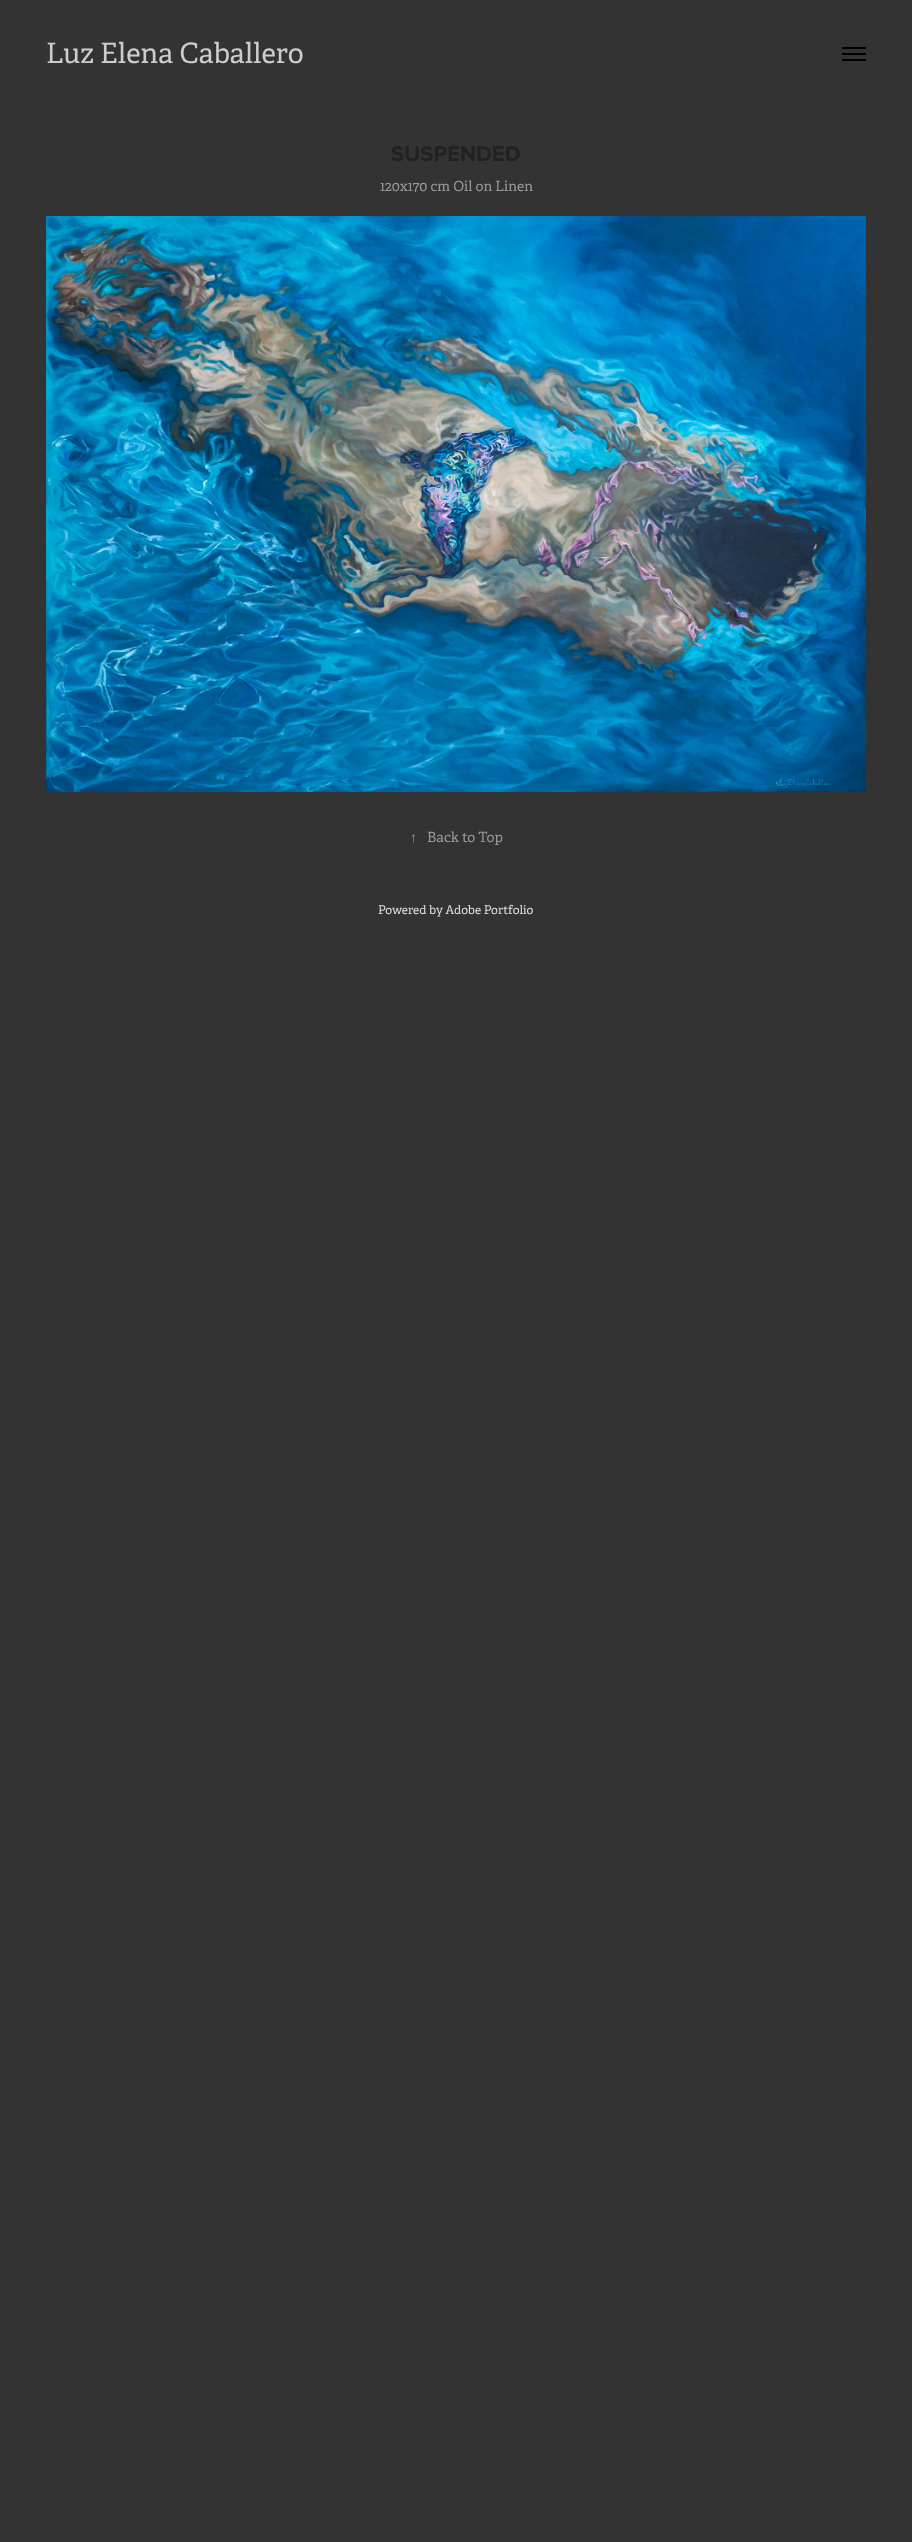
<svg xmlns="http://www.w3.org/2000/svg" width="912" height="2542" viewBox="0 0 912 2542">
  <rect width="100%" height="100%" fill="rgb(51,51,51)"/>
  <text x="46" y="63" font-family="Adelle" font-size="28" fill="rgb(204,204,204)">Luz Elena Caballero</text>
  <rect x="842" y="47" width="24" height="2" fill="rgb(0,0,0)"/>
  <rect x="842" y="53" width="24" height="2" fill="rgb(0,0,0)"/>
  <rect x="842" y="59" width="24" height="2" fill="rgb(0,0,0)"/>
  <text x="391" y="161" font-family="Proxima Nova" font-size="22" font-weight="bold" fill="rgb(34,34,34)">SUSPENDED</text>
  <text x="380" y="191" font-family="Adelle" font-size="14" fill="rgb(153,153,153)">120x170 cm Oil on Linen</text>
  <image x="46" y="216" width="820" height="576" href="pic1.png"/>
  <text x="410" y="842" font-family="Liberation Serif" font-size="14" fill="rgb(153,153,153)">↑</text>
  <text x="427" y="842" font-family="Adelle" font-size="14" fill="rgb(153,153,153)">Back to Top</text>
  <text x="378" y="914" font-family="Adelle" font-size="12" fill="rgb(221,221,221)">Powered by Adobe Portfolio</text>
</svg>
